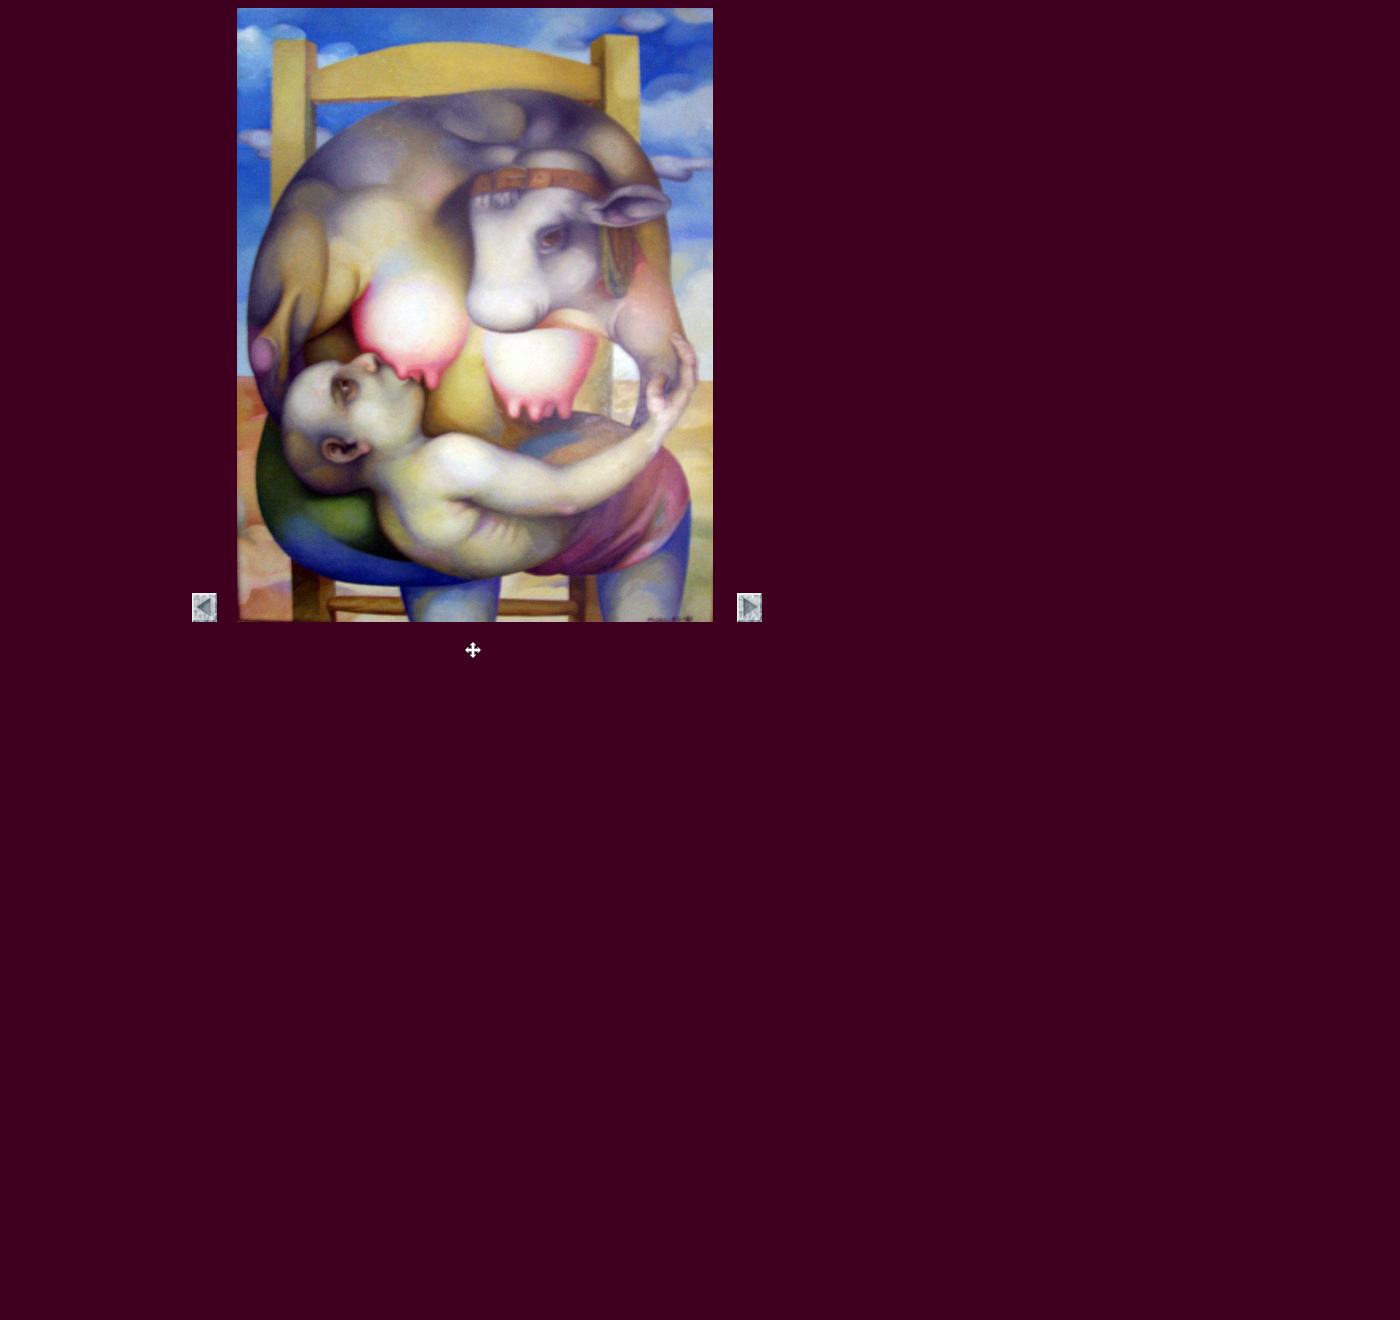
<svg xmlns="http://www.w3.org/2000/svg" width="1400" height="1320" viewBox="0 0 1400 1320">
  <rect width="100%" height="100%" fill="rgb(62,0,30)"/>
  <image x="192" y="593" width="25" height="29" href="pic1.png"/>
  <image x="237" y="8" width="476" height="614" href="pic2.png"/>
  <image x="737" y="593" width="25" height="29" href="pic3.png"/>
  <image x="465" y="642" width="16" height="16" href="pic4.png"/>
</svg>
